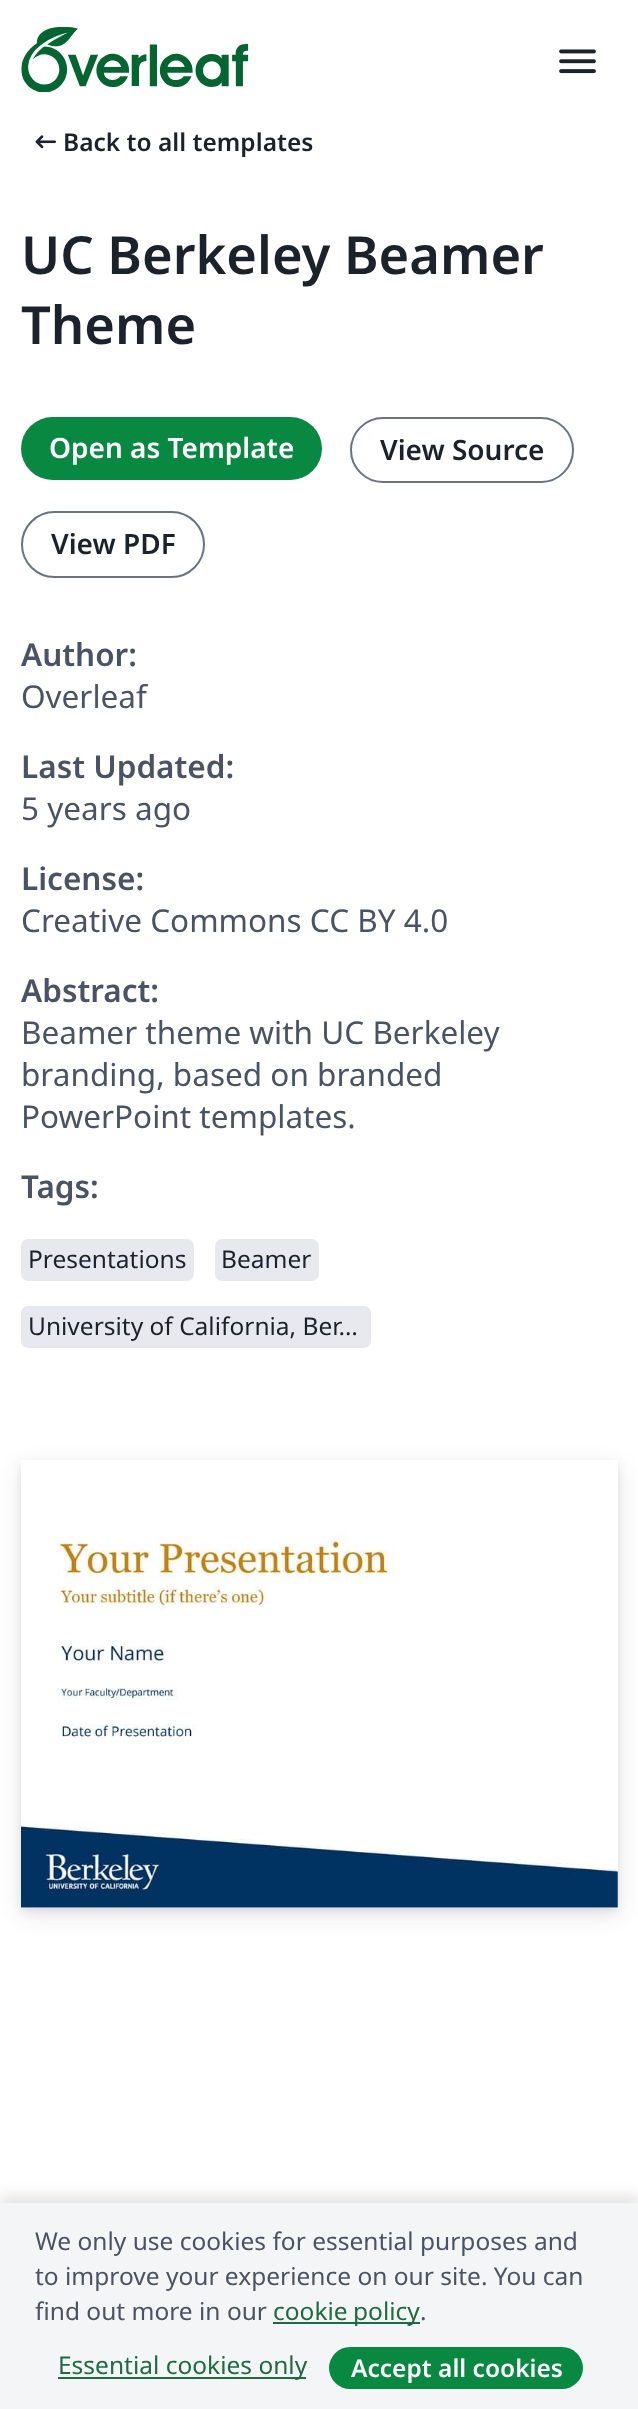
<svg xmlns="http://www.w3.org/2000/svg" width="638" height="2409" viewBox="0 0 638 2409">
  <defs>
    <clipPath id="clip1"><path d="M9 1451H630V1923H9ZM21 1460H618V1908H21Z" clip-rule="evenodd"/></clipPath>
    <clipPath id="clip2"><path d="M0 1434H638V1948H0ZM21 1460H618V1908H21Z" clip-rule="evenodd"/></clipPath>
  </defs>
  <rect width="100%" height="100%" fill="rgb(255,255,255)"/>
  <image x="21" y="27" width="228" height="65" href="pic1.png"/>
  <image x="559" y="49" width="37" height="25" href="pic2.png"/>
  <image x="35" y="135" width="21" height="14" href="pic3.png"/>
  <text x="63" y="151" font-family="Noto Sans" font-size="24.5" font-weight="600" fill="rgb(27,34,44)">Back to all templates</text>
  <g font-family="Noto Sans" font-size="52.5" font-weight="600" fill="rgb(27,34,44)">
    <text>
      <tspan x="21" y="274">UC Berkeley Beamer</tspan>
      <tspan x="21" y="344">Theme</tspan>
    </text>
  </g>
  <rect x="21" y="417" width="301" height="63" rx="31.5" fill="rgb(9,136,66)"/>
  <text x="49" y="458" font-family="Noto Sans" font-size="28" font-weight="600" fill="rgb(255,255,255)">Open as Template</text>
  <rect x="351" y="418" width="222" height="64" rx="32" fill="none" stroke="rgb(103,114,131)" stroke-width="2"/>
  <text x="380" y="460" font-family="Noto Sans" font-size="28" font-weight="600" fill="rgb(27,34,44)">View Source</text>
  <rect x="22" y="512" width="182" height="65" rx="32.5" fill="none" stroke="rgb(103,114,131)" stroke-width="2"/>
  <text x="51" y="554" font-family="Noto Sans" font-size="28" font-weight="600" fill="rgb(27,34,44)">View PDF</text>
  <text x="21" y="666" font-family="Noto Sans" font-size="31.5" font-weight="600" fill="rgb(73,83,101)">Author:</text>
  <text x="21" y="708" font-family="Noto Sans" font-size="31.5" fill="rgb(73,83,101)">Overleaf</text>
  <text x="21" y="778" font-family="Noto Sans" font-size="31.5" font-weight="600" fill="rgb(73,83,101)">Last Updated:</text>
  <text x="21" y="820" font-family="Noto Sans" font-size="31.5" fill="rgb(73,83,101)">5 years ago</text>
  <text x="21" y="890" font-family="Noto Sans" font-size="31.5" font-weight="600" fill="rgb(73,83,101)">License:</text>
  <text x="21" y="932" font-family="Noto Sans" font-size="31.5" fill="rgb(73,83,101)">Creative Commons CC BY 4.0</text>
  <text x="21" y="1002" font-family="Noto Sans" font-size="31.5" font-weight="600" fill="rgb(73,83,101)">Abstract:</text>
  <g font-family="Noto Sans" font-size="31.5" fill="rgb(73,83,101)">
    <text>
      <tspan x="21" y="1044">Beamer theme with UC Berkeley</tspan>
      <tspan x="21" y="1086">branding, based on branded</tspan>
      <tspan x="21" y="1128">PowerPoint templates.</tspan>
    </text>
  </g>
  <text x="21" y="1198" font-family="Noto Sans" font-size="31.5" font-weight="600" fill="rgb(73,83,101)">Tags:</text>
  <rect x="21" y="1239" width="173" height="42" rx="7" fill="rgb(231,233,238)"/>
  <text x="28" y="1268" font-family="Noto Sans" font-size="24.5" fill="rgb(27,34,44)">Presentations</text>
  <rect x="215" y="1239" width="104" height="42" rx="7" fill="rgb(231,233,238)"/>
  <text x="221" y="1268" font-family="Noto Sans" font-size="24.5" fill="rgb(27,34,44)">Beamer</text>
  <rect x="21" y="1306" width="350" height="42" rx="7" fill="rgb(231,233,238)"/>
  <text x="28" y="1335" font-family="Noto Sans" font-size="24.5" fill="rgb(27,34,44)">University of California, Ber…</text>
  <g clip-path="url(#clip1)">
    <rect x="21" y="1463" width="597" height="448" fill="rgba(30,37,48,0.08)" filter="blur(3.5px)"/>
  </g>
  <g clip-path="url(#clip2)">
    <rect x="21" y="1467" width="597" height="448" fill="rgba(30,37,48,0.12)" filter="blur(10.5px)"/>
  </g>
  <image x="21" y="1476" width="597" height="432" href="pic4.png"/>
  <rect x="0" y="2195" width="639" height="206" fill="rgba(0,0,0,0.1)" filter="blur(7px)"/>
  <rect x="0" y="2203" width="638" height="206" fill="rgb(244,245,246)"/>
  <g font-family="Noto Sans" font-size="24.5" fill="rgb(73,83,101)">
    <text>
      <tspan x="35" y="2250">We only use cookies for essential purposes and</tspan>
      <tspan x="35" y="2285">to improve your experience on our site. You can</tspan>
      <tspan x="35" y="2320">find out more in our</tspan>
    </text>
  </g>
  <rect x="273" y="2322" width="147" height="2" fill="rgb(30,107,65)"/>
  <text x="273" y="2320" word-spacing="-1" font-family="Noto Sans" font-size="24.5" fill="rgb(30,107,65)">cookie policy</text>
  <text x="420" y="2320" font-family="Noto Sans" font-size="24.5" fill="rgb(73,83,101)">.</text>
  <rect x="58" y="2377" width="248" height="2" fill="rgb(30,107,65)"/>
  <text x="58" y="2374" font-family="Noto Sans" font-size="24.5" fill="rgb(30,107,65)">Essential cookies only</text>
  <rect x="329" y="2347" width="254" height="42" rx="21" fill="rgb(9,136,66)"/>
  <text x="351" y="2377" font-family="Noto Sans" font-size="24.5" font-weight="600" fill="rgb(255,255,255)">Accept all cookies</text>
</svg>
